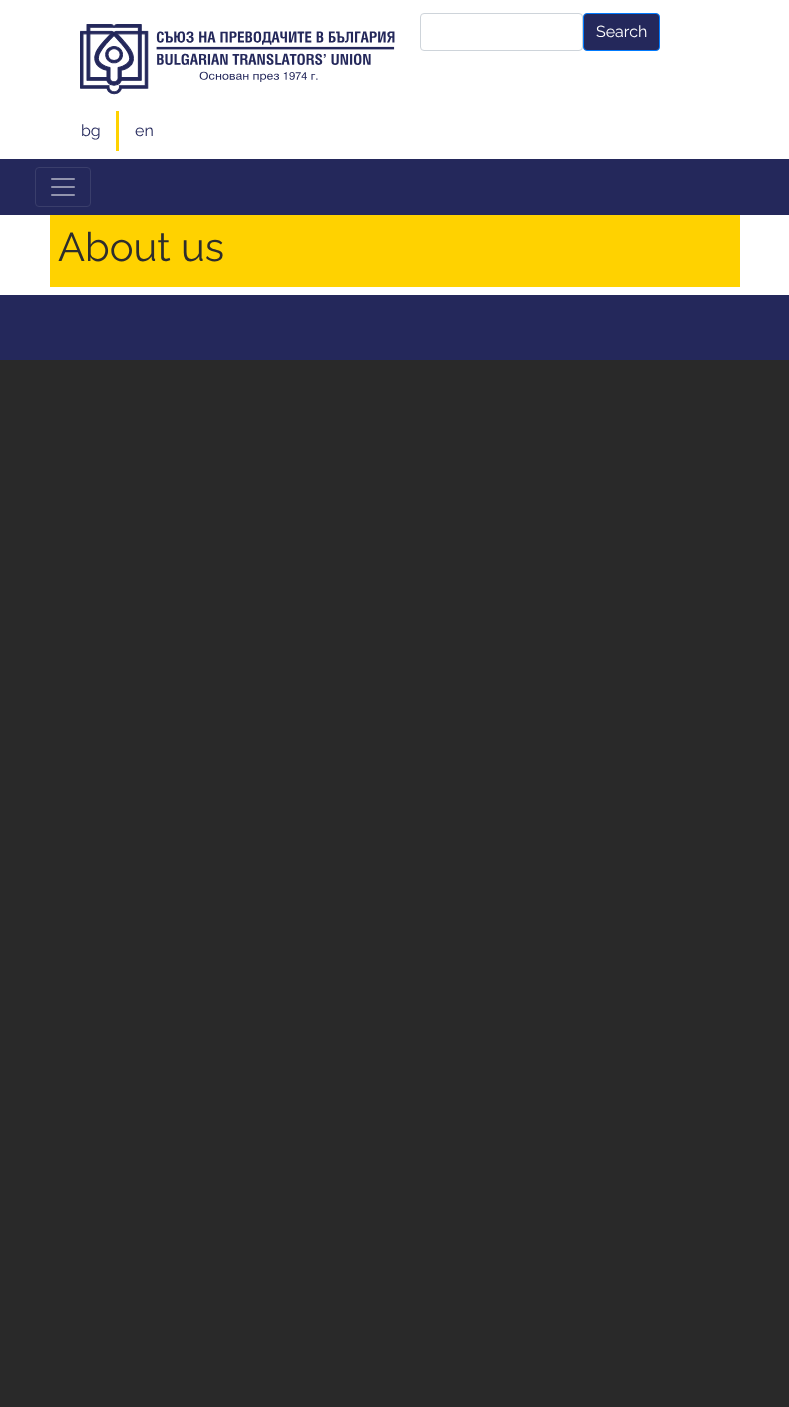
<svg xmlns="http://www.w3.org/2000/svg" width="789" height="1407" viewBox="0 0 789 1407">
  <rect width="100%" height="100%" fill="rgb(41,41,41)"/>
  <rect x="0" y="0" width="789" height="295" fill="rgb(255,255,255)"/>
  <image x="80" y="24" width="315" height="71" href="pic1.png"/>
  <rect x="420.5" y="13.5" width="162" height="37" rx="3.5" fill="none" stroke="rgb(206,212,218)"/>
  <rect x="583.5" y="13.5" width="76" height="37" rx="3.5" fill="rgb(36,40,91)" stroke="rgb(0,123,255)"/>
  <text x="596" y="37" font-family="Raleway" font-size="16" font-weight="100" fill="rgb(255,255,255)">Search</text>
  <rect x="116" y="111" width="3" height="40" fill="rgb(255,210,0)"/>
  <g font-family="Raleway" font-size="16" font-weight="100" fill="rgb(36,40,91)">
    <text x="81" y="136">bg</text>
    <text x="135" y="136">en</text>
  </g>
  <rect x="0" y="159" width="789" height="56" fill="rgb(36,40,91)"/>
  <rect x="35.5" y="167.5" width="55" height="39" rx="3.5" fill="none" stroke="rgb(58,62,107)"/>
  <image x="51" y="178" width="24" height="18" href="pic2.png"/>
  <rect x="50" y="215" width="690" height="72" fill="rgb(255,210,0)"/>
  <text x="58" y="261" font-family="Raleway" font-size="40" font-weight="100" fill="rgb(45,45,45)">About us</text>
  <rect x="0" y="295" width="789" height="65" fill="rgb(36,40,91)"/>
</svg>
